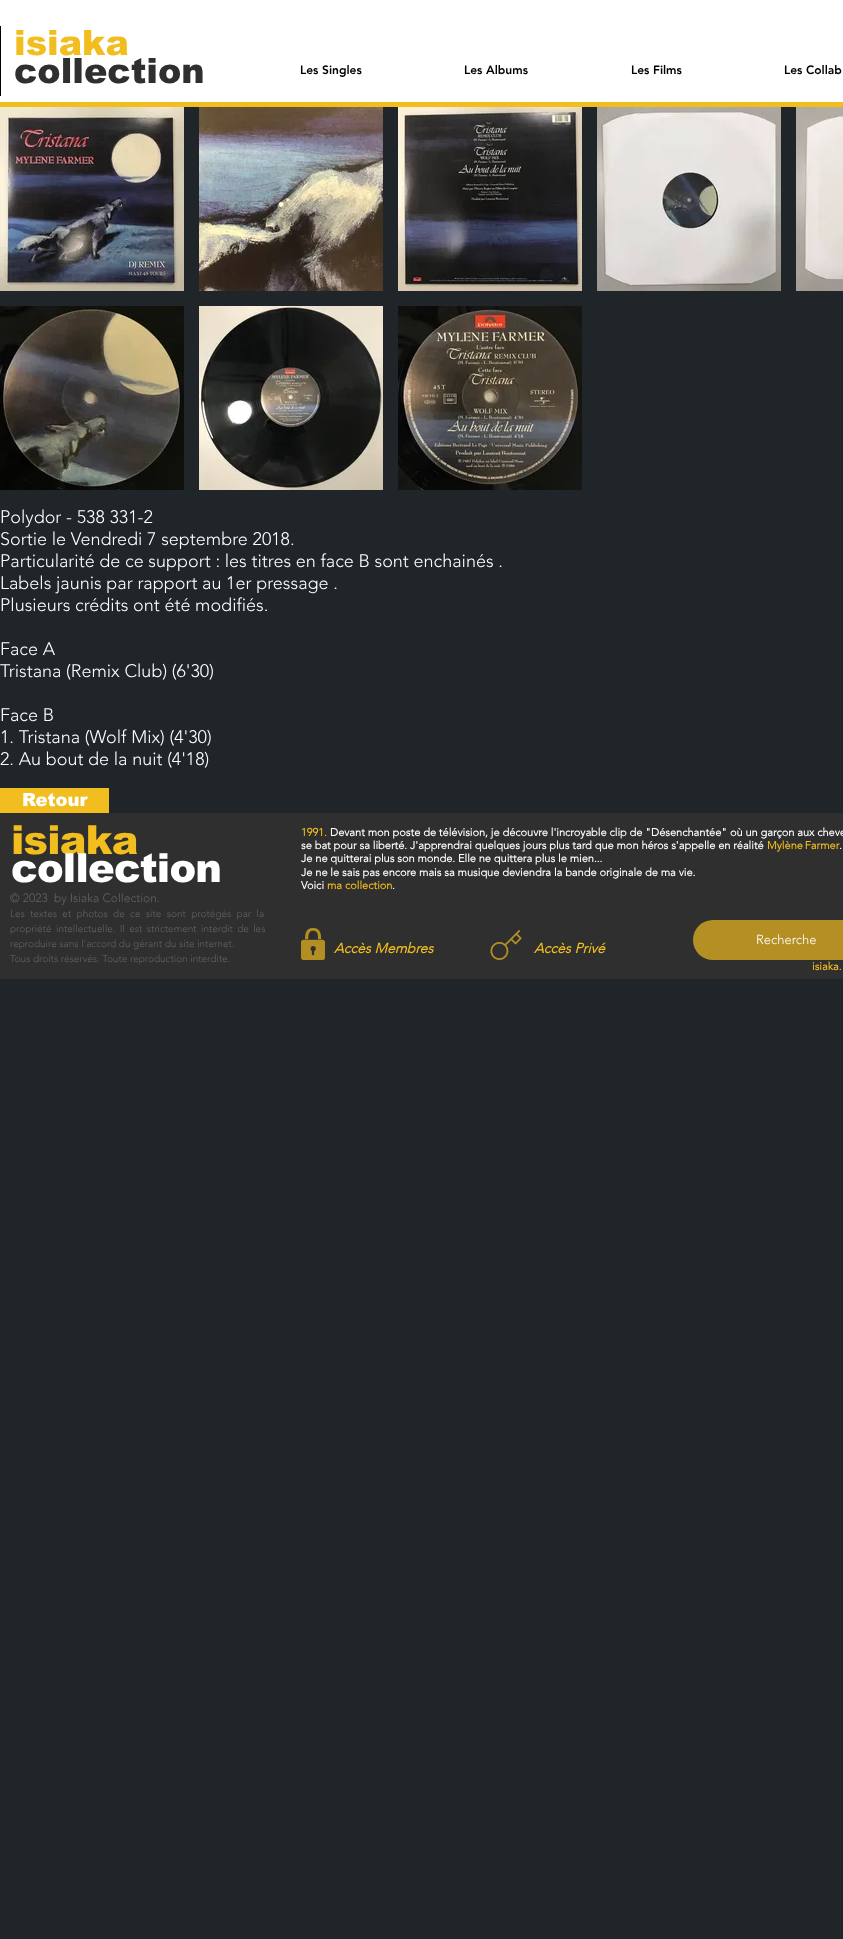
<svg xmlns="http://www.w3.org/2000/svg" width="843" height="1939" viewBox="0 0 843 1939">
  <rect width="100%" height="100%" fill="rgb(31,37,40)"/>
  <rect x="0" y="0" width="843" height="102" fill="rgb(255,255,255)"/>
  <rect x="0" y="102" width="843" height="5" fill="rgb(242,189,30)"/>
  <rect x="0" y="26" width="1" height="70" fill="rgb(1,0,2)"/>
  <text x="14" y="55" font-family="arial" font-size="35" font-weight="900" fill="rgb(242,189,30)">isiaka</text>
  <text x="14" y="83" font-family="arial" font-size="35" font-weight="900" fill="rgb(47,47,48)">collection</text>
  <g font-family="'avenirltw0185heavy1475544'" font-size="12" font-weight="900" fill="rgb(0,0,0)">
    <text x="300" y="74">Les Singles</text>
    <text x="464" y="74">Les Albums</text>
    <text x="631" y="74">Les Films</text>
    <text x="784" y="74">Les Collab</text>
  </g>
  <image x="0" y="107" width="184" height="184" href="pic1.png"/>
  <image x="199" y="107" width="184" height="184" href="pic2.png"/>
  <image x="398" y="107" width="184" height="184" href="pic3.png"/>
  <image x="597" y="107" width="184" height="184" href="pic4.png"/>
  <image x="796" y="107" width="47" height="184" href="pic5.png"/>
  <image x="0" y="306" width="184" height="184" href="pic6.png"/>
  <image x="199" y="306" width="184" height="184" href="pic7.png"/>
  <image x="398" y="306" width="184" height="184" href="pic8.png"/>
  <g font-family="'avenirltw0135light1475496'" font-size="18" font-weight="300" fill="rgb(255,255,255)">
    <text>
      <tspan x="0" y="523">Polydor - 538 331-2</tspan>
      <tspan x="0" y="545">Sortie le Vendredi 7 septembre 2018.</tspan>
      <tspan x="0" y="567">Particularité de ce support : les titres en face B sont enchainés .</tspan>
      <tspan x="0" y="589">Labels jaunis par rapport au 1er pressage .</tspan>
      <tspan x="0" y="611">Plusieurs crédits ont été modifiés.</tspan>
    </text>
    <text>
      <tspan x="0" y="655">Face A</tspan>
      <tspan x="0" y="677">Tristana (Remix Club) (6'30)</tspan>
    </text>
    <text>
      <tspan x="0" y="721">Face B</tspan>
      <tspan x="0" y="743">1. Tristana (Wolf Mix) (4'30)</tspan>
      <tspan x="0" y="765">2. Au bout de la nuit (4'18)</tspan>
    </text>
  </g>
  <rect x="0" y="788" width="109" height="25" fill="rgb(242,189,30)"/>
  <text x="22" y="806" font-family="arial" font-size="18" font-weight="900" fill="rgb(255,255,255)">Retour</text>
  <rect x="0" y="813" width="843" height="166" fill="rgb(47,47,48)"/>
  <text x="11" y="854" font-family="arial" font-size="40" font-weight="900" letter-spacing="-0.75" fill="rgb(242,189,30)">isiaka</text>
  <text x="11" y="882" font-family="arial" font-size="40" font-weight="900" letter-spacing="-0.75" fill="rgb(255,255,255)">collection</text>
  <text x="301" y="836" font-family="'avenirltw0135light1475496'" font-size="11" font-weight="bold" fill="rgb(242,189,30)">1991.</text>
  <g font-family="'avenirltw0135light1475496'" font-size="11" font-weight="bold" fill="rgb(255,255,255)">
    <text x="330" y="836">Devant mon poste de télévision, je découvre l'incroyable clip de "Désenchantée" où un garçon aux cheve</text>
    <text x="301" y="849">se bat pour sa liberté. J'apprendrai quelques jours plus tard que mon héros s'appelle en réalité</text>
  </g>
  <text x="767" y="849" word-spacing="-1" font-family="'avenirltw0135light1475496'" font-size="11" font-weight="bold" fill="rgb(242,189,30)">Mylène Farmer</text>
  <g font-family="'avenirltw0135light1475496'" font-size="11" font-weight="bold" fill="rgb(255,255,255)">
    <text x="839" y="849">.</text>
    <text>
      <tspan x="301" y="862">Je ne quitterai plus son monde. Elle ne quittera plus le mien...</tspan>
      <tspan x="301" y="876">Je ne le sais pas encore mais sa musique deviendra la bande originale de ma vie.</tspan>
      <tspan x="301" y="889">Voici</tspan>
    </text>
  </g>
  <text x="327" y="889" font-family="'avenirltw0135light1475496'" font-size="11" font-weight="bold" fill="rgb(242,189,30)">ma collection</text>
  <text x="392" y="889" font-family="'avenirltw0135light1475496'" font-size="11" font-weight="bold" fill="rgb(255,255,255)">.</text>
  <text x="10" y="902" font-family="'avenirltw0135light1475496'" font-size="12" font-weight="300" fill="rgb(99,99,100)" xml:space="preserve">© 2023  by Isiaka Collection.</text>
  <g font-family="'avenirltw0135light1475496'" font-size="10" font-weight="300" fill="rgb(99,99,100)">
    <text>
      <tspan x="10" y="917" word-spacing="2.75">Les textes et photos de ce site sont protégés par la</tspan>
      <tspan x="10" y="932">propriété</tspan>
    </text>
    <text x="56" y="932" word-spacing="1.75">intellectuelle. Il est strictement interdit de les</text>
    <text>
      <tspan x="10" y="947">reproduire sans l'accord du gérant du site internet.</tspan>
      <tspan x="10" y="962">Tous droits réservés. Toute</tspan>
    </text>
    <text x="130" y="962">reproduction interdite.</text>
  </g>
  <image x="301" y="928" width="24" height="32" href="pic9.png"/>
  <image x="490" y="930" width="32" height="30" href="pic10.png"/>
  <rect x="693" y="920" width="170" height="40" rx="20" fill="rgb(180,144,36)"/>
  <text x="756" y="944" font-family="'avenirltw0135light1475496'" font-size="13" font-weight="300" fill="rgb(255,255,255)">Recherche</text>
  <g font-family="'avenirltw0135light1475496'" font-size="14" font-weight="bold" font-style="italic" fill="rgb(242,189,30)">
    <text x="334" y="953">Accès Membres</text>
    <text x="534" y="953">Accès Privé</text>
  </g>
  <text x="812" y="970" font-family="'avenirltw0135light1475496'" font-size="11" font-weight="bold" fill="rgb(242,189,30)">isiaka.</text>
</svg>
